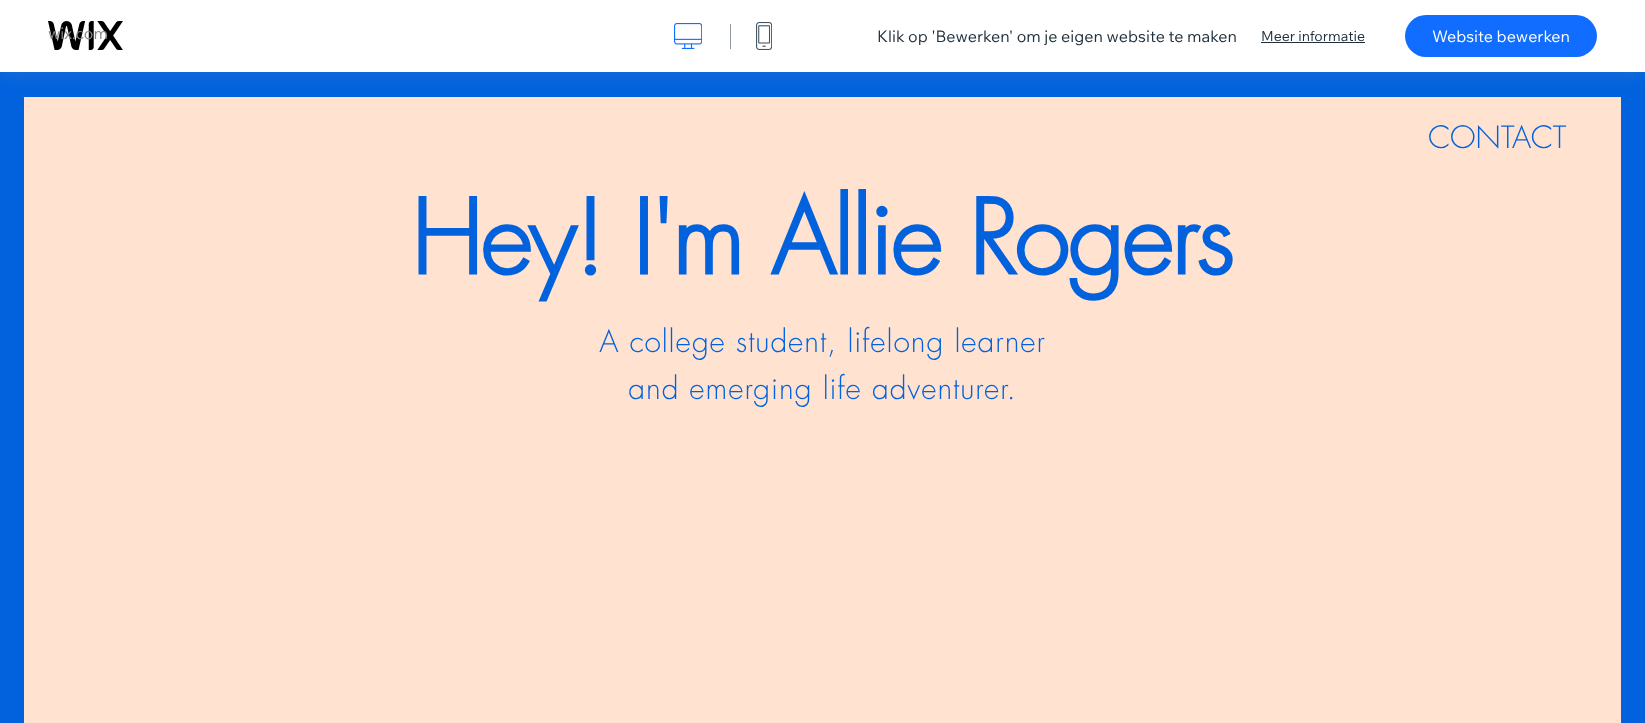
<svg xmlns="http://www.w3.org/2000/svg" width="1645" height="723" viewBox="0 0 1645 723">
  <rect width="100%" height="100%" fill="rgb(255,255,255)"/>
  <image x="0" y="72" width="1645" height="651" href="pic4.png"/>
  <rect x="0" y="2" width="1645" height="72" fill="rgba(129,162,182,0.2)" filter="blur(9px)"/>
  <rect x="0" y="0" width="1645" height="72" fill="rgb(255,255,255)"/>
  <image x="48" y="21" width="75" height="29" href="pic1.png"/>
  <text x="48" y="39" font-family="Wix Madefor Text" font-size="16" fill="rgb(136,136,136)">wix.com</text>
  <image x="674" y="23" width="28" height="26" href="pic2.png"/>
  <rect x="730" y="24" width="1" height="25" fill="rgb(144,152,158)"/>
  <image x="756" y="22" width="16" height="28" href="pic3.png"/>
  <text x="877" y="42" font-family="Wix Madefor Text" font-size="16" fill="rgb(32,48,60)">Klik op 'Bewerken' om je eigen website te maken</text>
  <text x="1261" y="41" font-family="Wix Madefor Text" font-size="14" fill="rgb(32,48,60)">Meer informatie</text>
  <rect x="1261" y="42" width="104" height="1" fill="rgb(32,48,60)"/>
  <rect x="1405" y="15" width="192" height="42" rx="21" fill="rgb(17,109,255)"/>
  <text x="1432" y="42" font-family="Wix Madefor Text" font-size="16" fill="rgb(255,255,255)">Website bewerken</text>
</svg>
